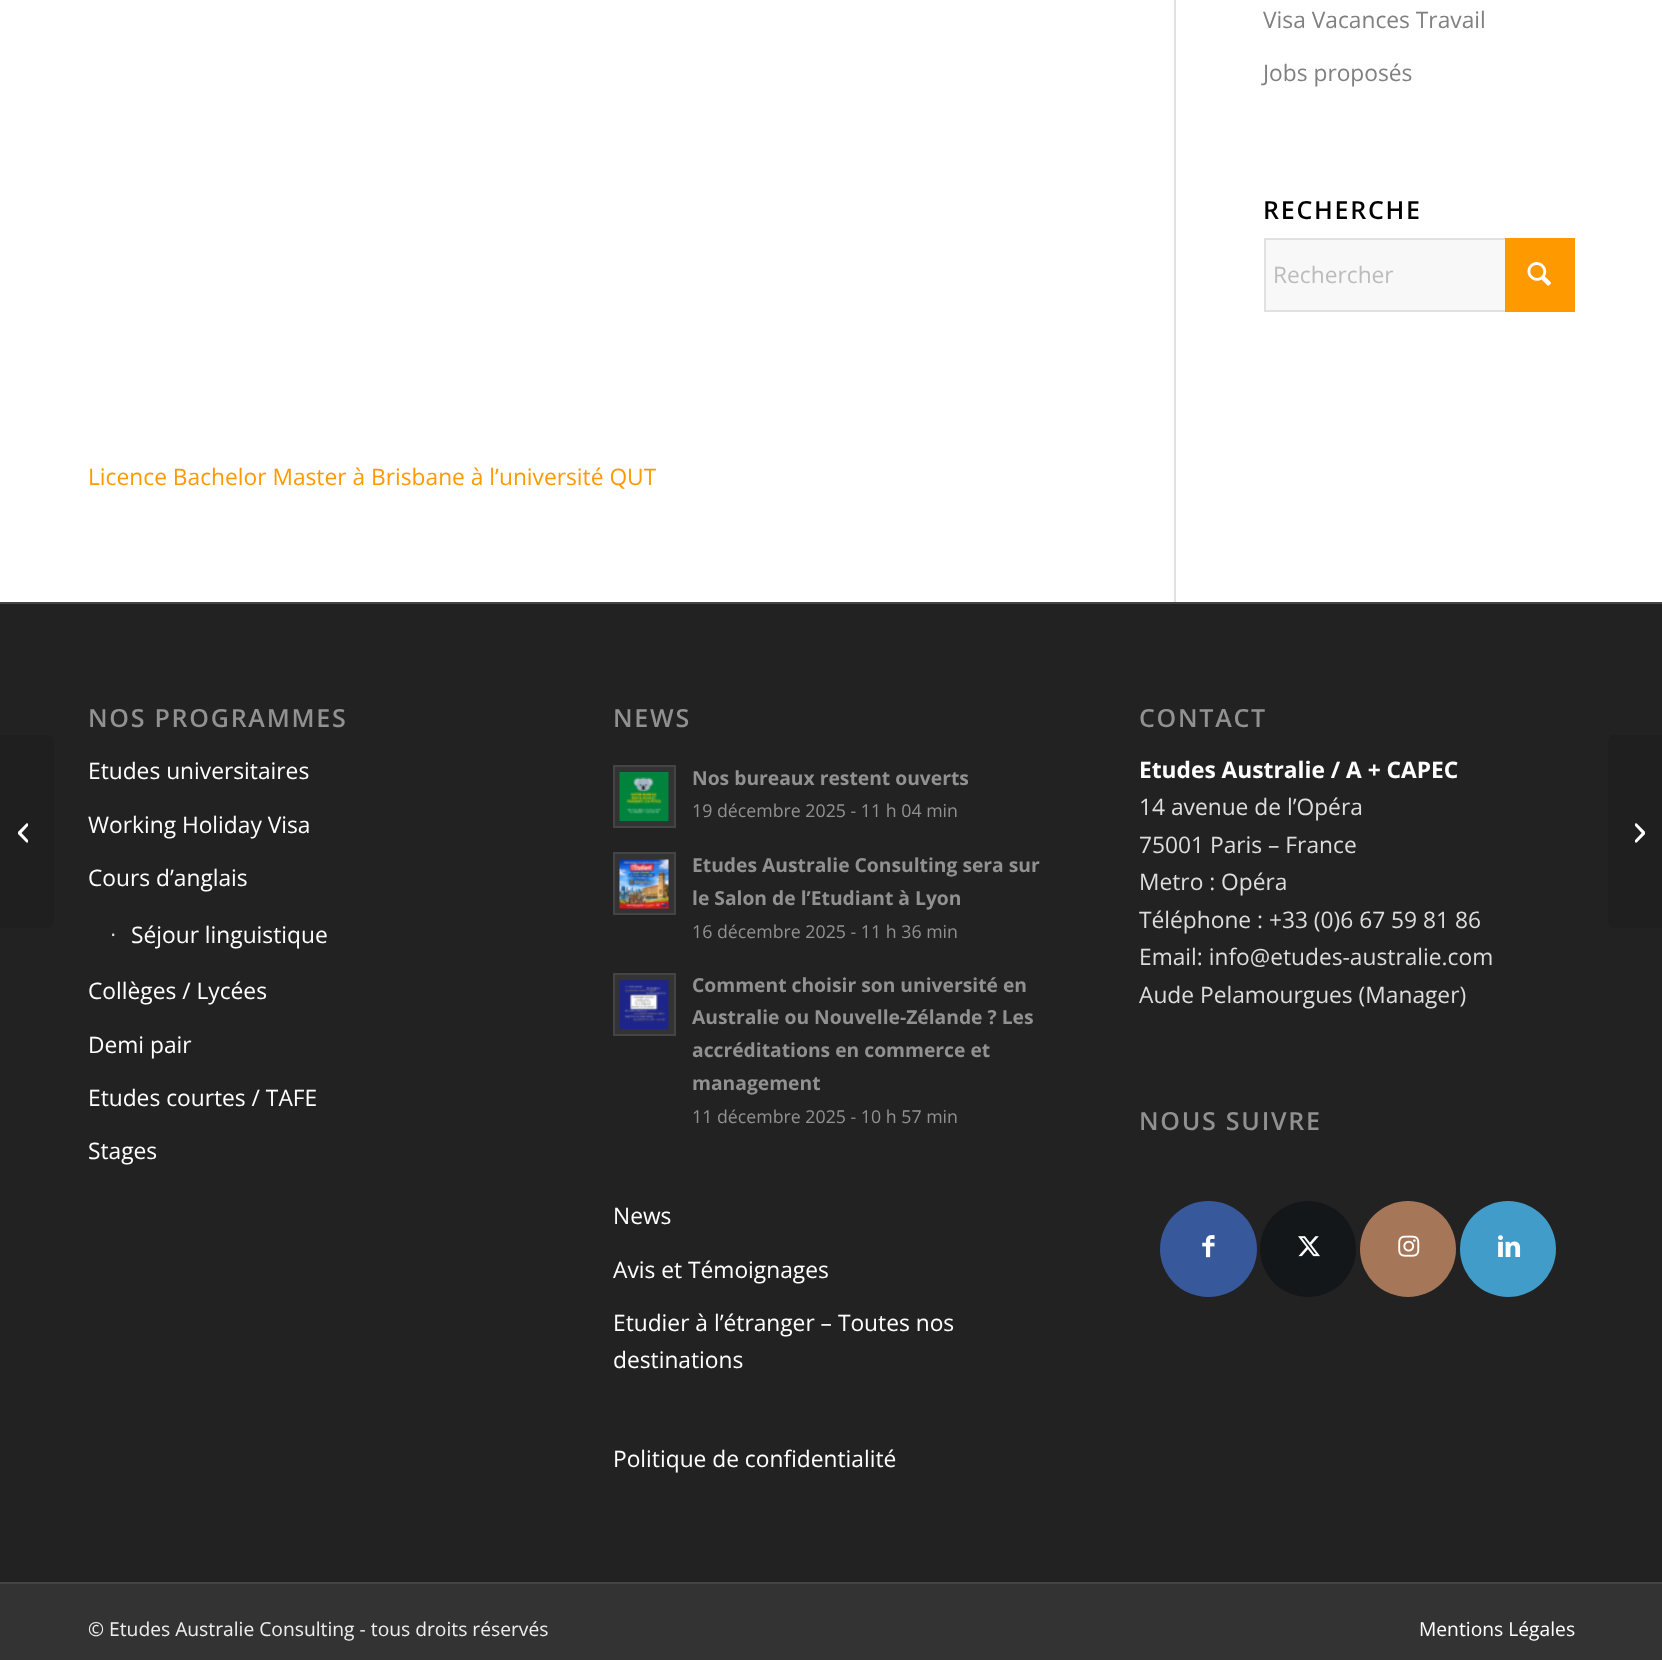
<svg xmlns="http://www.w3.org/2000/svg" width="1662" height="1660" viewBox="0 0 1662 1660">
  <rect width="100%" height="100%" fill="rgb(255,255,255)"/>
  <rect x="0" y="604" width="1662" height="978" fill="rgb(34,34,34)"/>
  <path d="M0 735H47C51 735 54 738 54 742V921C54 925 51 928 47 928H0Z" fill="rgb(31,31,31)"/>
  <image x="18" y="823" width="10" height="20" href="pic1.png"/>
  <g font-family="Open Sans" font-size="22.75" fill="rgb(128,128,128)">
    <text x="1263" y="28">Visa Vacances Travail</text>
    <text x="1263" y="81">Jobs proposés</text>
  </g>
  <text x="1263" y="219" font-family="Open Sans" font-size="25" font-weight="600" letter-spacing="1.75" fill="rgb(0,0,0)">RECHERCHE</text>
  <rect x="1266" y="240" width="239" height="70" fill="rgb(248,248,248)"/>
  <rect x="1265" y="239" width="309" height="72" fill="none" stroke="rgb(225,225,225)" stroke-width="2"/>
  <rect x="1505" y="238" width="70" height="74" fill="rgb(255,153,0)"/>
  <text x="1273" y="283" font-family="Open Sans" font-size="22.75" fill="rgb(188,188,188)">Rechercher</text>
  <image x="1527" y="262" width="24" height="24" href="pic2.png"/>
  <rect x="1174" y="0" width="2" height="602" fill="rgb(225,225,225)"/>
  <text x="88" y="485" font-family="Open Sans" font-size="22.75" fill="rgb(255,153,0)">Licence Bachelor Master à Brisbane à l’université QUT</text>
  <rect x="0" y="602" width="1662" height="2" fill="rgb(68,68,68)"/>
  <text x="88" y="727" font-family="Open Sans" font-size="25" font-weight="600" letter-spacing="1.75" fill="rgb(145,145,145)">NOS PROGRAMMES</text>
  <g font-family="Open Sans" font-size="22.75" fill="rgb(255,255,255)">
    <text x="88" y="779">Etudes universitaires</text>
    <text x="88" y="833">Working Holiday Visa</text>
    <text x="88" y="886">Cours d’anglais</text>
  </g>
  <text x="110" y="941" font-family="Liberation Sans" font-size="22.75" fill="rgb(221,221,221)">∙</text>
  <g font-family="Open Sans" font-size="22.75" fill="rgb(255,255,255)">
    <text x="131" y="943">Séjour linguistique</text>
    <text x="88" y="999">Collèges / Lycées</text>
    <text x="88" y="1053">Demi pair</text>
    <text x="88" y="1106">Etudes courtes / TAFE</text>
    <text x="88" y="1159">Stages</text>
  </g>
  <text x="613" y="727" font-family="Open Sans" font-size="25" font-weight="600" letter-spacing="1.75" fill="rgb(145,145,145)">NEWS</text>
  <rect x="614" y="766" width="61" height="61" fill="rgb(51,51,51)" stroke="rgb(68,68,68)" stroke-width="2"/>
  <image x="619" y="772" width="50" height="49" href="pic3.png"/>
  <text x="692" y="785" font-family="Open Sans" font-size="19.3" font-weight="bold" fill="rgb(145,145,145)">Nos bureaux restent ouverts</text>
  <text x="692" y="817" font-family="Open Sans" font-size="17.75" fill="rgb(145,145,145)">19 décembre 2025 - 11 h 04 min</text>
  <rect x="614" y="853" width="61" height="61" fill="rgb(51,51,51)" stroke="rgb(68,68,68)" stroke-width="2"/>
  <image x="619" y="859" width="50" height="50" href="pic4.png"/>
  <g font-family="Open Sans" font-size="19.3" font-weight="bold" fill="rgb(145,145,145)">
    <text>
      <tspan x="692" y="872">Etudes Australie Consulting sera sur</tspan>
      <tspan x="692" y="905">le Salon de l’Etudiant à Lyon</tspan>
    </text>
  </g>
  <text x="692" y="938" font-family="Open Sans" font-size="17.75" fill="rgb(145,145,145)">16 décembre 2025 - 11 h 36 min</text>
  <rect x="614" y="974" width="61" height="61" fill="rgb(51,51,51)" stroke="rgb(68,68,68)" stroke-width="2"/>
  <image x="619" y="980" width="50" height="50" href="pic5.png"/>
  <g font-family="Open Sans" font-size="19.3" font-weight="bold" fill="rgb(145,145,145)">
    <text>
      <tspan x="692" y="992">Comment choisir son université en</tspan>
      <tspan x="692" y="1024">Australie ou Nouvelle-Zélande ? Les</tspan>
      <tspan x="692" y="1057">accréditations en commerce et</tspan>
      <tspan x="692" y="1090">management</tspan>
    </text>
  </g>
  <text x="692" y="1123" font-family="Open Sans" font-size="17.75" fill="rgb(145,145,145)">11 décembre 2025 - 10 h 57 min</text>
  <g font-family="Open Sans" font-size="22.75" fill="rgb(255,255,255)">
    <text x="613" y="1224">News</text>
    <text x="613" y="1278">Avis et Témoignages</text>
    <text>
      <tspan x="613" y="1331">Etudier à l’étranger – Toutes nos</tspan>
      <tspan x="613" y="1368">destinations</tspan>
    </text>
    <text x="613" y="1467">Politique de confidentialité</text>
  </g>
  <text x="1139" y="727" font-family="Open Sans" font-size="25" font-weight="600" letter-spacing="1.75" fill="rgb(145,145,145)">CONTACT</text>
  <text x="1139" y="778" font-family="Open Sans" font-size="22.75" font-weight="bold" fill="rgb(255,255,255)">Etudes Australie / A + CAPEC</text>
  <g font-family="Open Sans" font-size="22.75" fill="rgb(221,221,221)">
    <text>
      <tspan x="1139" y="815">14 avenue de l’Opéra</tspan>
      <tspan x="1139" y="853">75001 Paris – France</tspan>
      <tspan x="1139" y="890">Metro : Opéra</tspan>
      <tspan x="1139" y="928">Téléphone : +33 (0)6 67 59 81 86</tspan>
      <tspan x="1139" y="965">Email: info@etudes-australie.com</tspan>
      <tspan x="1139" y="1003">Aude Pelamourgues (Manager)</tspan>
    </text>
  </g>
  <text x="1139" y="1130" font-family="Open Sans" font-size="25" font-weight="600" letter-spacing="1.75" fill="rgb(145,145,145)">NOUS SUIVRE</text>
  <rect x="1160" y="1201" width="97" height="96" rx="48" fill="rgb(55,88,155)"/>
  <image x="1202" y="1235" width="13" height="23" href="pic6.png"/>
  <circle cx="1308" cy="1249" r="48" fill="rgb(20,23,26)"/>
  <image x="1298" y="1236" width="22" height="21" href="pic7.png"/>
  <circle cx="1408" cy="1249" r="48" fill="rgb(166,118,88)"/>
  <image x="1398" y="1235" width="22" height="22" href="pic8.png"/>
  <circle cx="1508" cy="1249" r="48" fill="rgb(65,156,202)"/>
  <image x="1498" y="1235" width="23" height="22" href="pic9.png"/>
  <rect x="0" y="1584" width="1662" height="76" fill="rgb(51,51,51)"/>
  <rect x="0" y="1582" width="1662" height="2" fill="rgb(68,68,68)"/>
  <text x="88" y="1636" font-family="Open Sans" font-size="19.25" fill="rgb(238,238,238)">© Etudes Australie Consulting - tous droits réservés</text>
  <text x="1419" y="1636" font-family="Open Sans" font-size="19.25" fill="rgb(255,255,255)">Mentions Légales</text>
  <path d="M1615 735H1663V928H1615C1611 928 1608 925 1608 921V742C1608 738 1611 735 1615 735Z" fill="rgb(31,31,31)"/>
  <image x="1635" y="823" width="10" height="20" href="pic10.png"/>
</svg>
